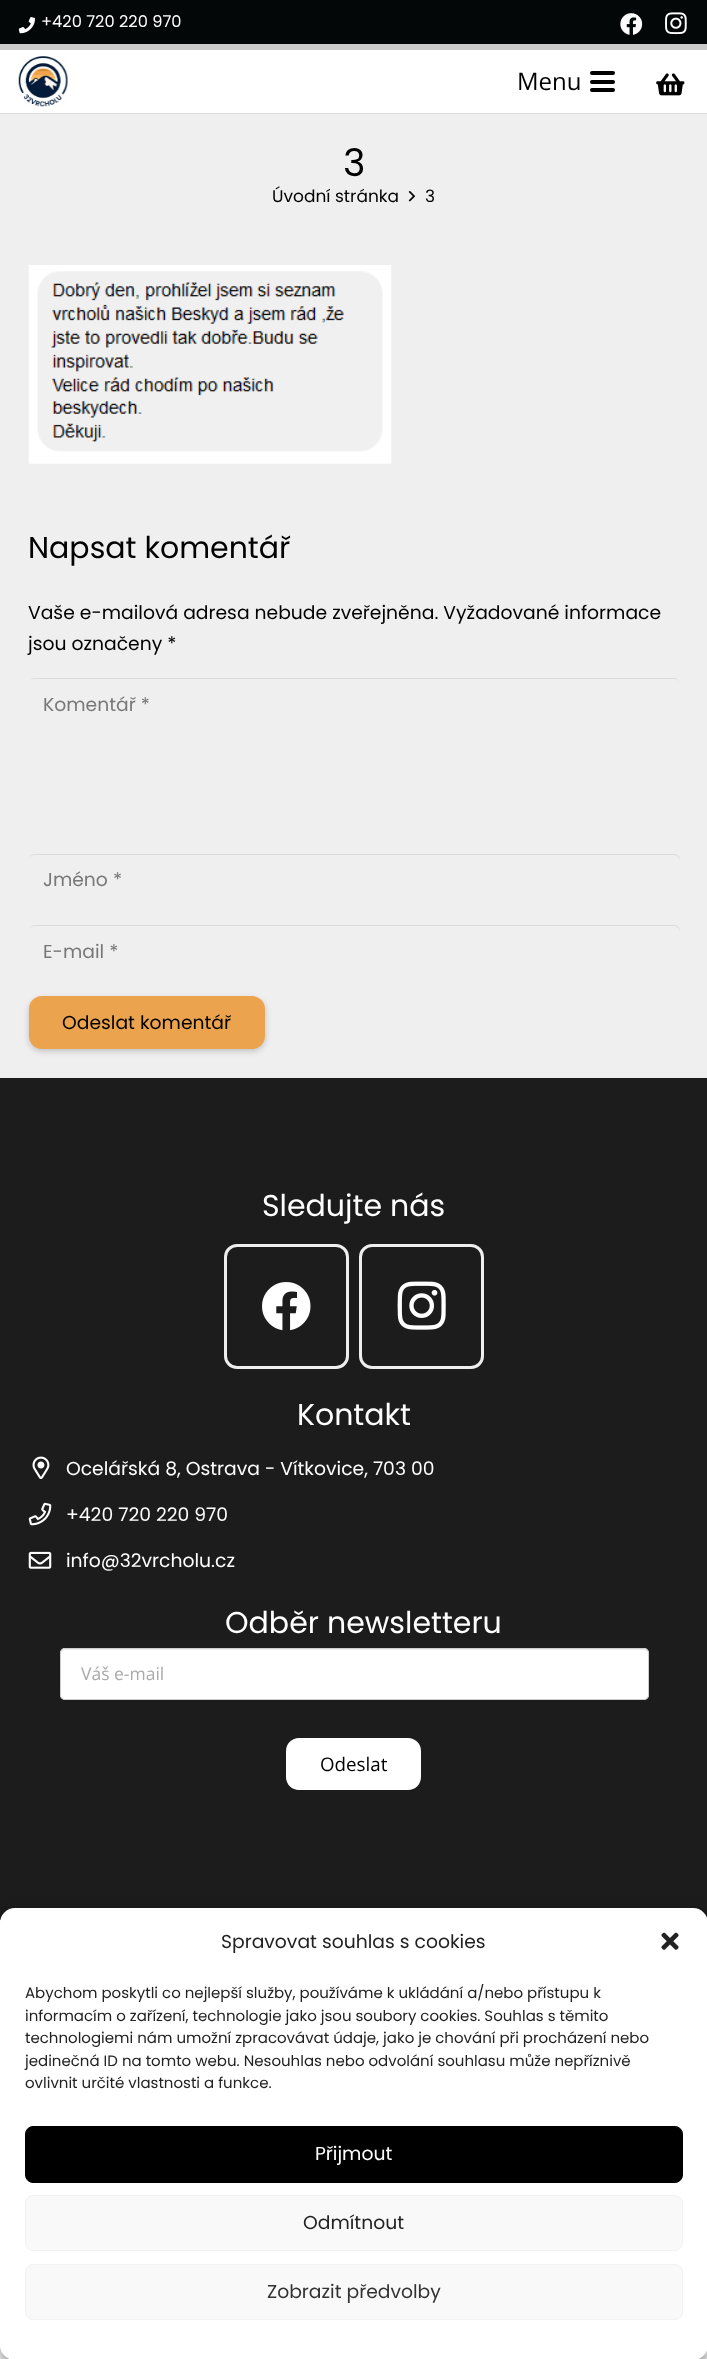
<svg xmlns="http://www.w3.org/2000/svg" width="707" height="2359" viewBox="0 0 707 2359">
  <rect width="100%" height="100%" fill="rgb(255,255,255)"/>
  <rect x="0" y="114" width="707" height="964" fill="rgb(239,239,239)"/>
  <rect x="0" y="0" width="707" height="44" fill="rgb(4,7,7)"/>
  <rect x="0" y="44" width="707" height="6" fill="rgb(204,204,204)"/>
  <image x="18" y="17" width="17" height="17" href="pic1.png"/>
  <text x="41" y="27" font-family="Poppins" font-size="16.25" fill="rgb(255,255,255)">+420 720 220 970</text>
  <image x="620" y="13" width="23" height="22" href="pic2.png"/>
  <image x="665" y="12" width="22" height="23" href="pic3.png"/>
  <path d="M0 112V114H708V51V112Z" fill="rgb(220,220,220)"/>
  <rect x="0" y="112" width="707" height="1" fill="rgb(255,255,255)"/>
  <image x="18" y="56" width="50" height="51" href="pic4.png"/>
  <text x="517" y="90" font-family="Open Sans" font-size="24" fill="rgb(0,0,0)">Menu</text>
  <rect x="590" y="80" width="25" height="4" rx="2" fill="rgb(0,0,0)"/>
  <rect x="590" y="71" width="25" height="4" rx="2" fill="rgb(0,0,0)"/>
  <rect x="590" y="88" width="25" height="4" rx="2" fill="rgb(0,0,0)"/>
  <image x="656" y="73" width="29" height="23" href="pic5.png"/>
  <text x="343" y="176" font-family="Poppins" font-size="38" fill="rgb(0,0,0)">3</text>
  <text x="272" y="202" font-family="Poppins" font-size="17" fill="rgb(0,0,0)">Úvodní stránka</text>
  <image x="408" y="190" width="8" height="12" href="pic6.png"/>
  <text x="425" y="202" font-family="Poppins" font-size="17" fill="rgb(0,0,0)">3</text>
  <image x="28" y="265" width="364" height="199" href="pic7.png"/>
  <text x="28" y="558" font-family="Poppins" font-size="30" fill="rgb(0,0,0)">Napsat komentář</text>
  <g font-family="Poppins" font-size="18.75" fill="rgb(0,0,0)">
    <text>
      <tspan x="28" y="619">Vaše e-mailová adresa nebude zveřejněna. Vyžadované informace</tspan>
      <tspan x="28" y="650">jsou označeny *</tspan>
    </text>
  </g>
  <path d="M34 679H674C677 679 680 681 680 684C680 681 677 678 674 678H35C32 678 30 680 29 682C30 680 32 679 34 679Z" fill="rgb(220,220,220)"/>
  <text x="43" y="711" font-family="Poppins" font-size="18.75" fill="rgb(120,120,120)">Komentář *</text>
  <path d="M34 855H674C677 855 680 858 680 861C680 857 678 854 674 854H35C31 854 29 857 29 861C29 858 31 855 34 855Z" fill="rgb(220,220,220)"/>
  <text x="43" y="886" font-family="Poppins" font-size="18.75" fill="rgb(120,120,120)">Jméno *</text>
  <path d="M34 926H674C677 926 680 929 680 932C680 928 678 925 674 925H35C31 925 29 928 29 932C29 929 31 926 34 926Z" fill="rgb(220,220,220)"/>
  <text x="43" y="958" font-family="Poppins" font-size="18.75" fill="rgb(120,120,120)">E-mail *</text>
  <rect x="29" y="999" width="236" height="52" rx="13" fill="rgba(0,0,0,0.2)" filter="blur(3px)"/>
  <rect x="29" y="996" width="236" height="53" rx="13" fill="rgb(236,163,77)"/>
  <text x="62" y="1029" font-family="Poppins" font-size="18.75" fill="rgb(0,0,0)">Odeslat komentář</text>
  <rect x="0" y="1078" width="707" height="842" fill="rgb(28,28,28)"/>
  <text x="262" y="1216" font-family="Poppins" font-size="30" fill="rgb(255,255,255)">Sledujte nás</text>
  <rect x="225.5" y="1245.5" width="122" height="122" rx="11.5" fill="none" stroke="rgb(238,238,238)" stroke-width="3"/>
  <image x="262" y="1282" width="49" height="49" href="pic8.png"/>
  <rect x="360.5" y="1245.5" width="122" height="122" rx="11.5" fill="none" stroke="rgb(238,238,238)" stroke-width="3"/>
  <image x="397" y="1281" width="49" height="49" href="pic9.png"/>
  <text x="297" y="1425" font-family="Poppins" font-size="30" fill="rgb(255,255,255)">Kontakt</text>
  <image x="32" y="1456" width="18" height="23" href="pic10.png"/>
  <text x="66" y="1475" font-family="Poppins" font-size="18.75" fill="rgb(255,255,255)">Ocelářská 8, Ostrava - Vítkovice, 703 00</text>
  <image x="28" y="1502" width="24" height="24" href="pic11.png"/>
  <text x="66" y="1521" font-family="Poppins" font-size="18.75" fill="rgb(255,255,255)">+420 720 220 970</text>
  <image x="28" y="1551" width="24" height="18" href="pic12.png"/>
  <text x="66" y="1567" font-family="Poppins" font-size="18.75" fill="rgb(255,255,255)">info@32vrcholu.cz</text>
  <text x="225" y="1633" font-family="Poppins" font-size="30" fill="rgb(255,255,255)">Odběr newsletteru</text>
  <rect x="60" y="1648" width="589" height="52" rx="5" fill="rgb(255,255,255)"/>
  <path d="M65 1650H644C646 1650 648 1652 648 1654V1653C648 1651 646 1649 644 1649H65C63 1649 61 1651 61 1653V1654C61 1652 63 1650 65 1650Z" fill="rgb(236,236,236)"/>
  <rect x="60.5" y="1648.5" width="588" height="51" rx="4.5" fill="none" stroke="rgb(204,204,204)"/>
  <text x="81" y="1680" font-family="Open Sans" font-size="17.5" fill="rgb(170,170,170)">Váš e-mail</text>
  <rect x="286" y="1738" width="135" height="52" rx="13" fill="rgb(255,255,255)"/>
  <text x="320" y="1771" font-family="Open Sans" font-size="18.75" fill="rgb(0,0,0)">Odeslat</text>
  <rect x="0" y="1915" width="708" height="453" rx="15" fill="rgba(0,0,0,0.23)" filter="blur(4px)"/>
  <rect x="0" y="1920" width="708" height="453" rx="15" fill="rgba(0,0,0,0.19)" filter="blur(12.5px)"/>
  <rect x="0" y="1908" width="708" height="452" rx="15" fill="rgb(255,255,255)"/>
  <text x="221" y="1948" font-family="Poppins" font-size="18.75" fill="rgb(34,34,34)">Spravovat souhlas s cookies</text>
  <image x="661" y="1932" width="18" height="18" href="pic13.png"/>
  <g font-family="Poppins" font-size="15" fill="rgb(34,34,34)">
    <text>
      <tspan x="25" y="1998">Abychom poskytli co nejlepší služby, používáme k ukládání a/nebo přístupu k</tspan>
      <tspan x="25" y="2021">informacím o zařízení, technologie jako jsou soubory cookies. Souhlas s těmito</tspan>
      <tspan x="25" y="2043">technologiemi nám umožní zpracovávat údaje, jako je chování při procházení nebo</tspan>
      <tspan x="25" y="2066">jedinečná ID na tomto webu. Nesouhlas nebo odvolání souhlasu může nepříznivě</tspan>
      <tspan x="25" y="2088">ovlivnit určité vlastnosti a funkce.</tspan>
    </text>
  </g>
  <rect x="25.5" y="2126.5" width="657" height="56" rx="7.5" fill="rgb(0,0,0)" stroke="rgb(0,0,0)"/>
  <text x="315" y="2160" font-family="Poppins" font-size="18.75" fill="rgb(255,255,255)">Přijmout</text>
  <rect x="25.5" y="2195.5" width="657" height="55" rx="7.5" fill="rgb(249,249,249)" stroke="rgb(242,242,242)"/>
  <text x="303" y="2229" font-family="Poppins" font-size="18.75" fill="rgb(34,34,34)">Odmítnout</text>
  <rect x="25.5" y="2264.5" width="657" height="55" rx="7.5" fill="rgb(249,249,249)" stroke="rgb(242,242,242)"/>
  <text x="267" y="2298" font-family="Poppins" font-size="18.75" fill="rgb(51,51,51)">Zobrazit předvolby</text>
</svg>
